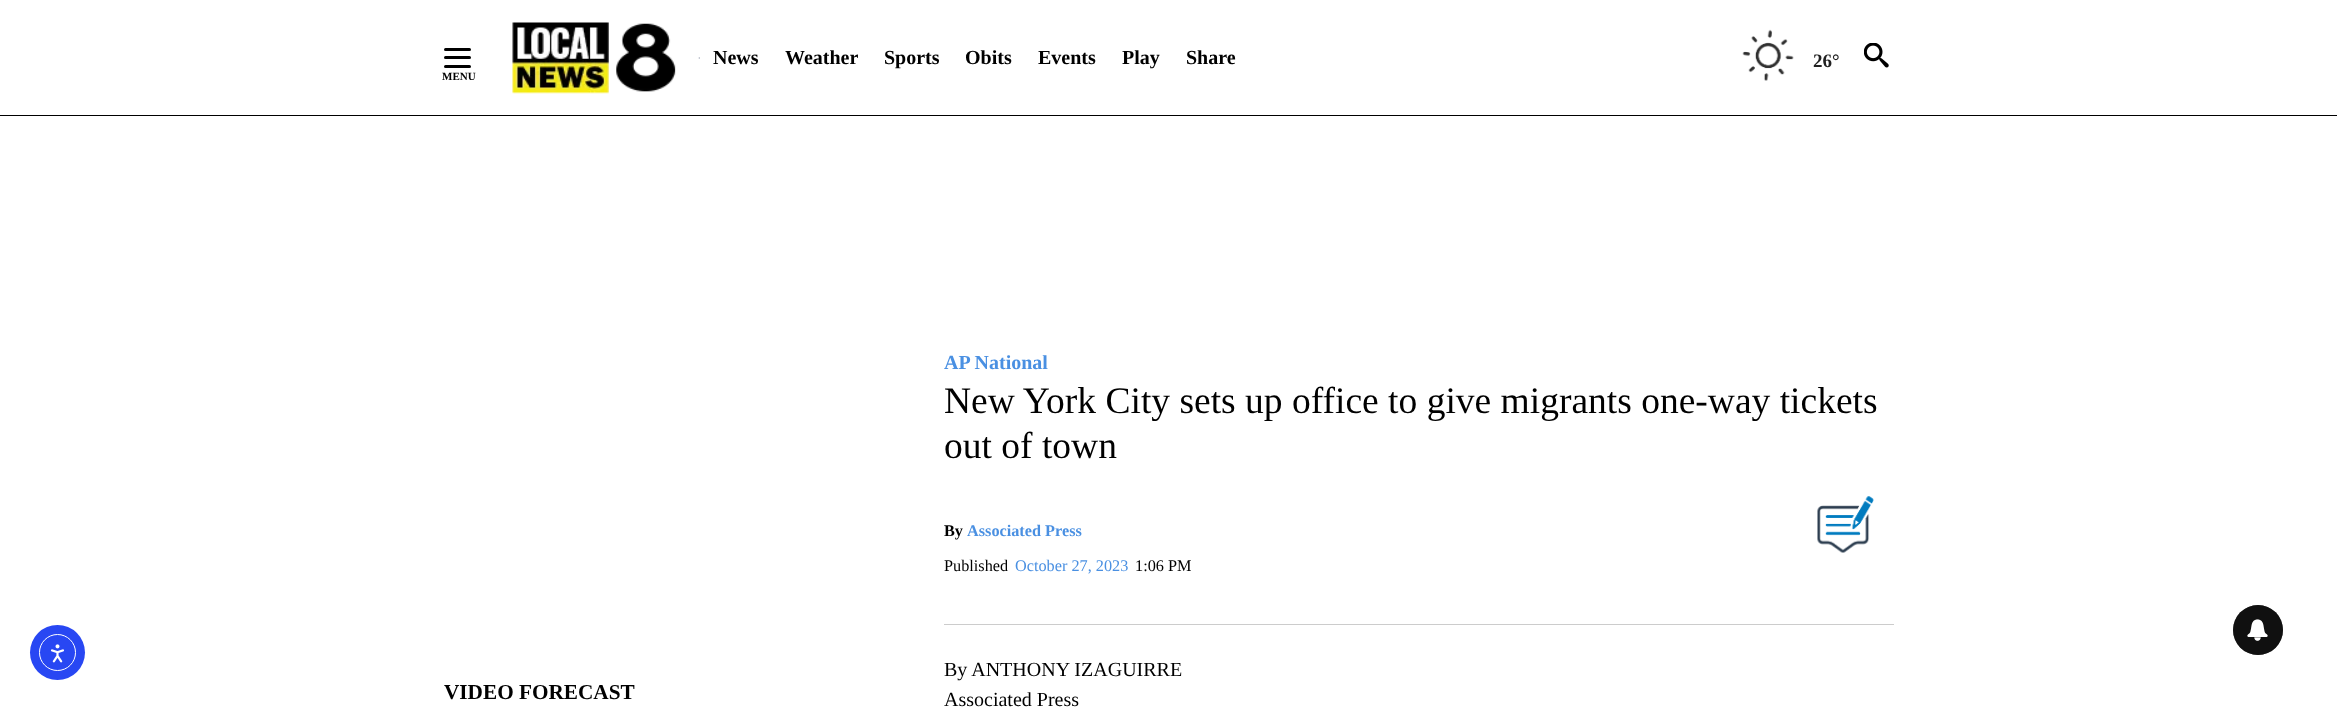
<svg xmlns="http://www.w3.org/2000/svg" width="2337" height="710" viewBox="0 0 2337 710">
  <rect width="100%" height="100%" fill="rgb(255,255,255)"/>
  <rect x="0" y="115" width="2337" height="1" fill="rgb(0,0,0)"/>
  <image x="512" y="22" width="164" height="72" href="pic1.png"/>
  <image x="698" y="57" width="2" height="2" href="pic2.png"/>
  <g font-family="Liberation Serif" font-size="20" font-weight="bold" fill="rgb(0,0,0)">
    <text x="713" y="64">News</text>
    <text x="785" y="64">Weather</text>
    <text x="884" y="64">Sports</text>
    <text x="965" y="64">Obits</text>
    <text x="1038" y="64">Events</text>
    <text x="1122" y="64">Play</text>
    <text x="1186" y="64">Share</text>
  </g>
  <image x="1742" y="29" width="52" height="52" href="pic3.png"/>
  <text x="1813" y="67" font-family="Liberation Serif" font-size="19" font-weight="bold" fill="rgb(33,33,33)">26°</text>
  <image x="1864" y="43" width="25" height="25" href="pic4.png"/>
  <rect x="444" y="48" width="27" height="3" rx="1.5" fill="rgb(0,0,0)"/>
  <rect x="444" y="56" width="27" height="3" rx="1.5" fill="rgb(0,0,0)"/>
  <rect x="444" y="65" width="27" height="3" rx="1.5" fill="rgb(0,0,0)"/>
  <text x="442" y="80" font-family="Liberation Serif" font-size="11" font-weight="bold" fill="rgb(0,0,0)">MENU</text>
  <circle cx="57.5" cy="652.5" r="27.5" fill="rgb(40,71,243)"/>
  <circle cx="57.5" cy="652.5" r="18" fill="none" stroke="rgb(255,255,255)"/>
  <image x="50" y="644" width="14" height="19" href="pic5.png"/>
  <text x="444" y="699" font-family="Liberation Serif" font-size="21.25" font-weight="bold" fill="rgb(0,0,0)">VIDEO FORECAST</text>
  <text x="944" y="369" font-family="Liberation Serif" font-size="20" font-weight="bold" fill="rgb(74,144,226)">AP National</text>
  <g font-family="Liberation Serif" font-size="37.5" fill="rgb(0,0,0)">
    <text>
      <tspan x="944" y="413">New York City sets up office to give migrants one-way tickets</tspan>
      <tspan x="944" y="458">out of town</tspan>
    </text>
  </g>
  <rect x="944" y="624" width="950" height="1" fill="rgb(204,204,204)"/>
  <text x="944" y="536" font-family="Liberation Serif" font-size="16.25" font-weight="bold" fill="rgb(0,0,0)">By</text>
  <text x="967" y="536" font-family="Liberation Serif" font-size="16.25" font-weight="bold" fill="rgb(74,144,226)">Associated Press</text>
  <text x="944" y="571" font-family="Liberation Serif" font-size="16.25" fill="rgb(0,0,0)">Published</text>
  <text x="1015" y="571" font-family="Liberation Serif" font-size="16.25" fill="rgb(74,144,226)">October 27, 2023</text>
  <text x="1135" y="571" font-family="Liberation Serif" font-size="16.25" fill="rgb(0,0,0)">1:06 PM</text>
  <image x="1817" y="496" width="57" height="57" href="pic6.png"/>
  <g font-family="Liberation Serif" font-size="20" fill="rgb(0,0,0)">
    <text>
      <tspan x="944" y="676">By ANTHONY IZAGUIRRE</tspan>
      <tspan x="944" y="706">Associated Press</tspan>
    </text>
  </g>
  <circle cx="2258" cy="630" r="25" fill="rgb(64,64,64)"/>
  <image x="2247" y="619" width="21" height="22" href="pic7.png"/>
  <circle cx="2258" cy="630" r="25" fill="rgba(0,0,0,0.75)"/>
  <image x="2247" y="619" width="21" height="22" href="pic8.png"/>
</svg>
